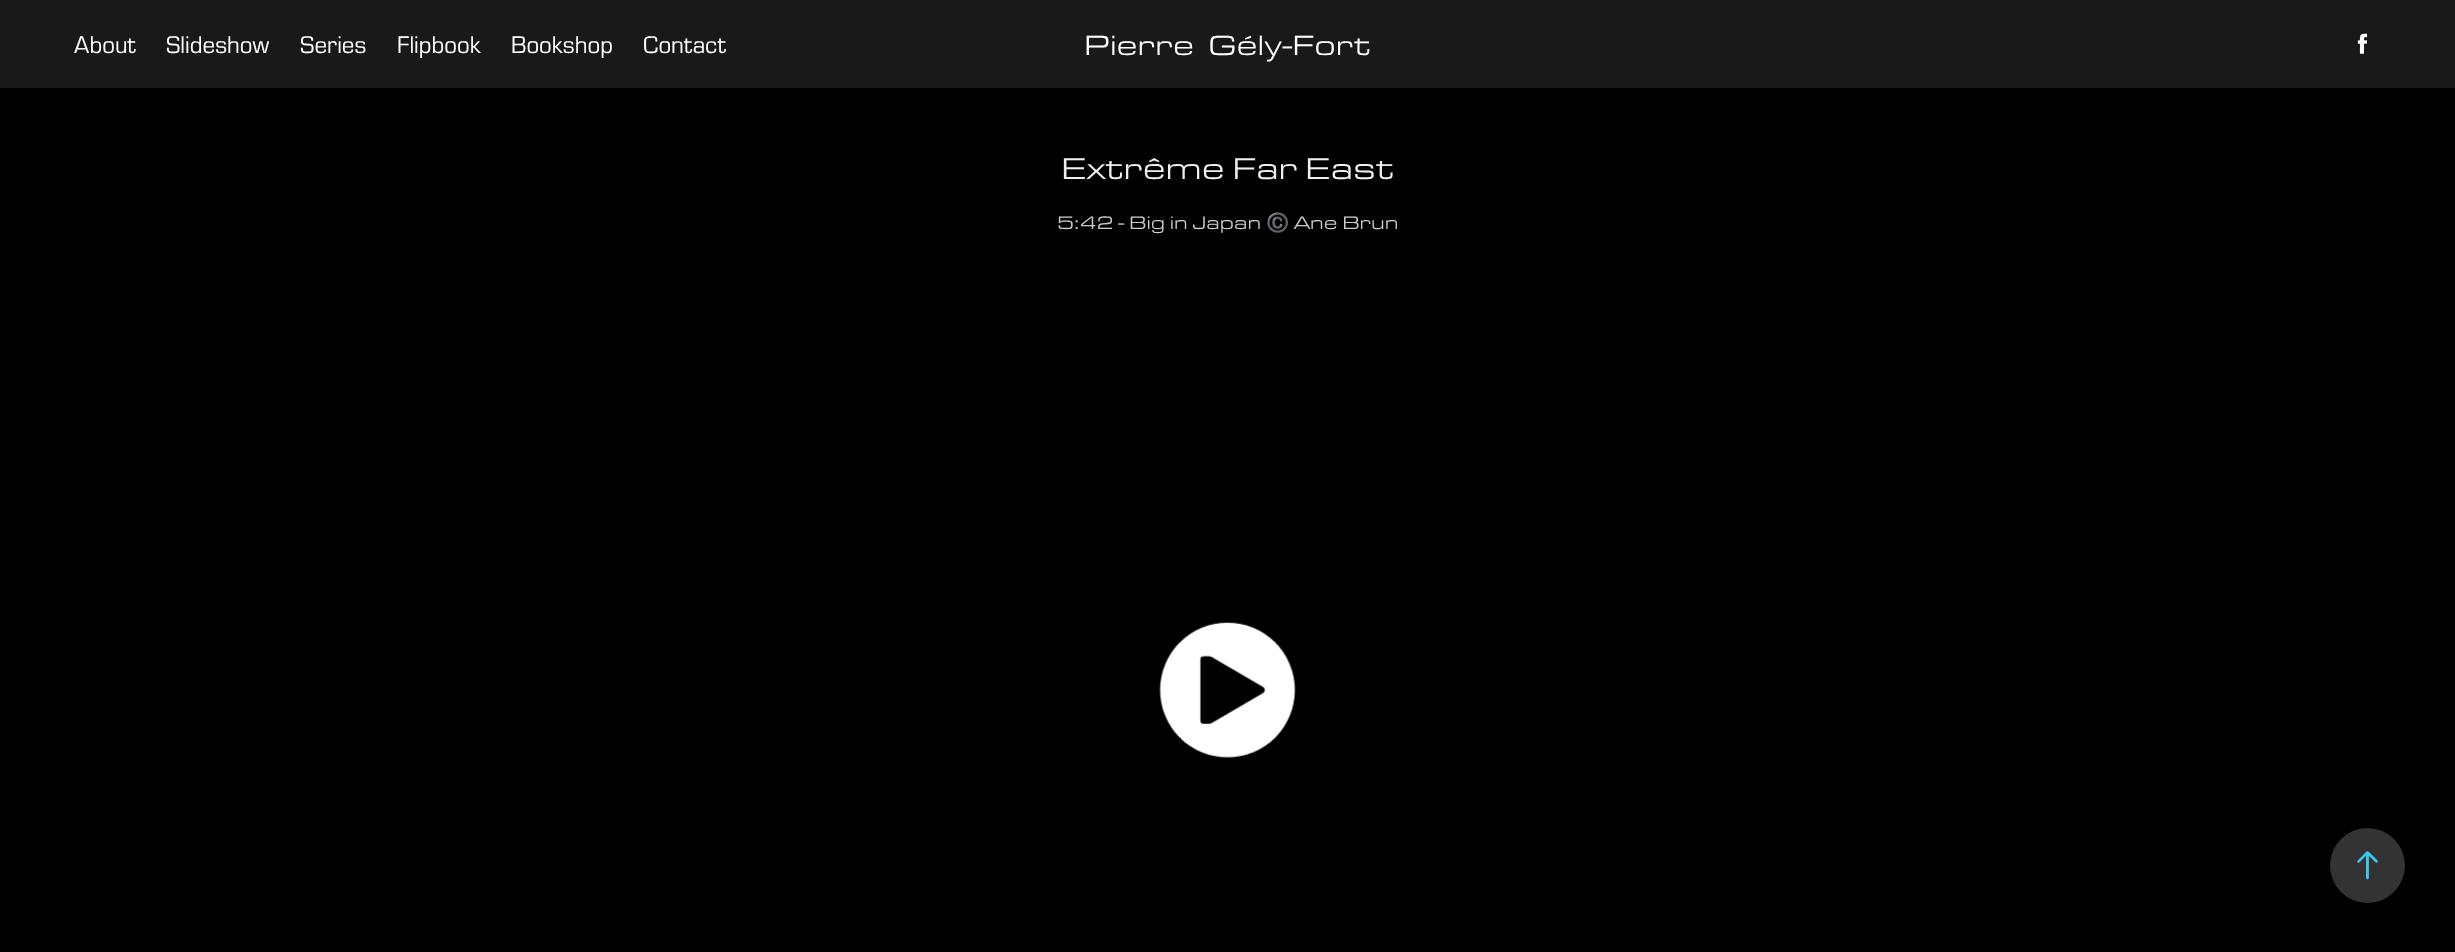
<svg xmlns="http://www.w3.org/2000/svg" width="2455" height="952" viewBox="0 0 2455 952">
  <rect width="100%" height="100%" fill="rgb(0,0,0)"/>
  <rect x="0" y="0" width="2455" height="88" fill="rgb(25,25,25)"/>
  <g font-family="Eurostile" font-size="25" fill="rgb(255,255,255)">
    <text x="74" y="53">About</text>
    <text x="166" y="53">Slideshow</text>
    <text x="300" y="53">Series</text>
    <text x="397" y="53">Flipbook</text>
    <text x="511" y="53">Bookshop</text>
    <text x="643" y="53">Contact</text>
  </g>
  <text x="1084" y="55" font-family="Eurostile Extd" font-size="28.75" fill="rgb(255,255,255)" xml:space="preserve">Pierre  Gély-Fort</text>
  <image x="2357" y="33" width="11" height="21" href="pic1.png"/>
  <text x="1061" y="179" font-family="Eurostile Extd" font-size="31.25" fill="rgb(238,238,238)">Extrême Far East</text>
  <text x="1057" y="229" font-family="Eurostile Extd" font-size="18.75" fill="rgb(204,204,204)">5:42 - Big in Japan</text>
  <text x="1266" y="229" font-family="Noto Color Emoji" font-size="18.75" fill="rgb(204,204,204)">©️</text>
  <text x="1294" y="229" font-family="Eurostile Extd" font-size="18.75" fill="rgb(204,204,204)">Ane Brun</text>
  <image x="1159" y="622" width="137" height="136" href="pic2.png"/>
  <circle cx="2367.5" cy="865.5" r="37.5" fill="rgb(51,51,51)"/>
  <image x="2357" y="851" width="21" height="29" href="pic3.png"/>
</svg>
